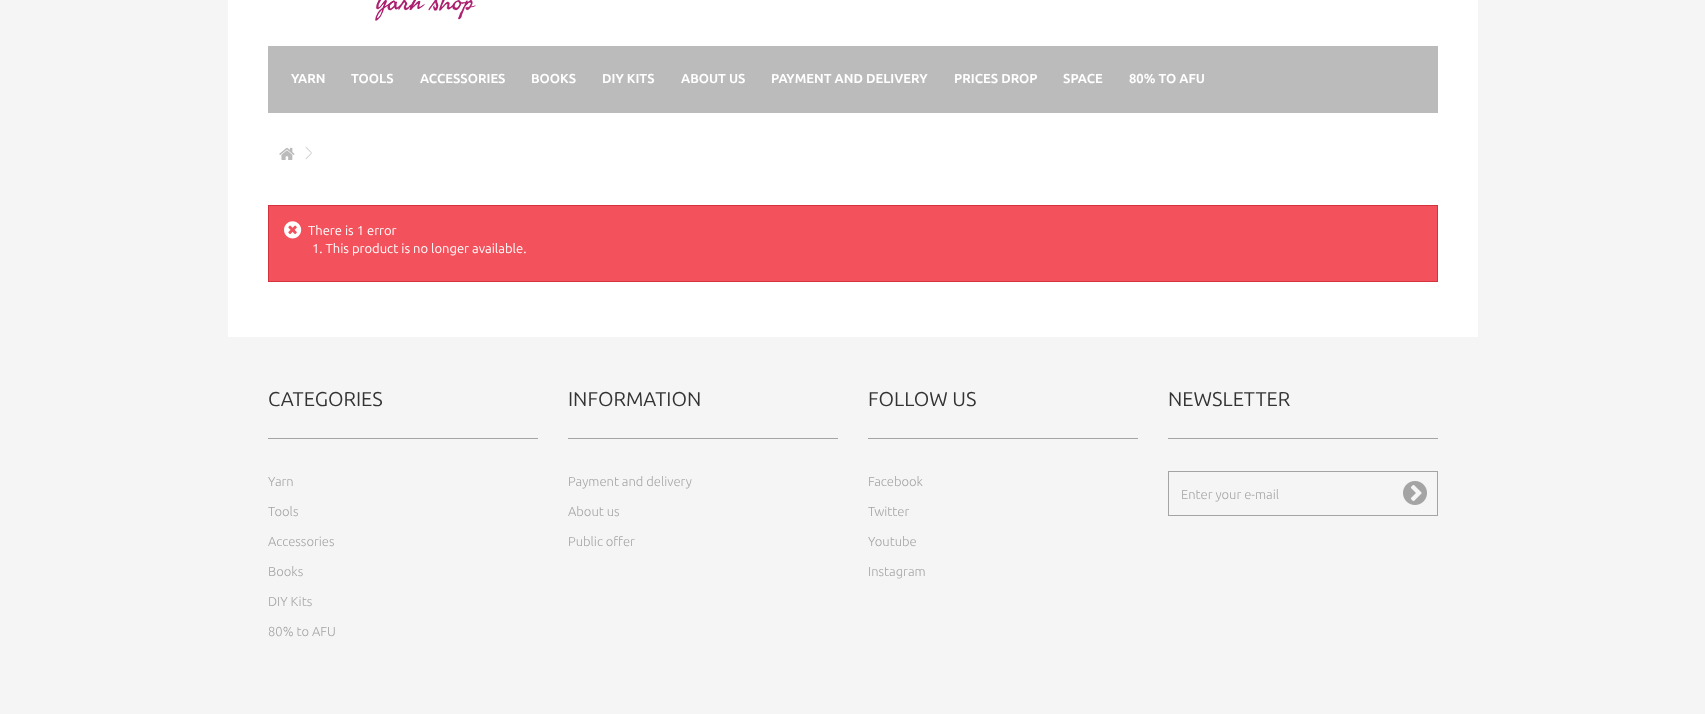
<svg xmlns="http://www.w3.org/2000/svg" width="1705" height="714" viewBox="0 0 1705 714">
  <rect width="100%" height="100%" fill="rgb(245,245,245)"/>
  <rect x="228" y="0" width="1250" height="337" fill="rgb(255,255,255)"/>
  <image x="375" y="0" width="101" height="21" href="pic1.png"/>
  <rect x="268" y="46" width="1170" height="67" fill="rgb(187,187,187)"/>
  <g font-family="Ubuntu" font-size="13" font-weight="bold" fill="rgb(255,255,255)">
    <text x="291" y="83">YARN</text>
    <text x="351" y="83">TOOLS</text>
    <text x="420" y="83">ACCESSORIES</text>
    <text x="531" y="83">BOOKS</text>
    <text x="602" y="83">DIY KITS</text>
    <text x="681" y="83">ABOUT US</text>
    <text x="771" y="83">PAYMENT AND DELIVERY</text>
    <text x="954" y="83">PRICES DROP</text>
    <text x="1063" y="83">SPACE</text>
    <text x="1129" y="83">80% TO AFU</text>
  </g>
  <image x="279" y="147" width="16" height="13" href="pic2.png"/>
  <path d="M306 146.5L312 152.5L311 153L305.5 147.5ZM311 153L312 153.5L306 159.5L305.5 158.5Z" fill="rgb(214,212,212)"/>
  <rect x="268.5" y="205.5" width="1169" height="76" fill="rgb(243,81,92)" stroke="rgb(212,50,61)"/>
  <image x="284" y="221" width="18" height="18" href="pic3.png"/>
  <g font-family="Ubuntu" font-size="13" fill="rgb(255,255,255)">
    <text x="308" y="235">There is 1 error</text>
    <text x="312" y="253">1. This product is no longer available.</text>
  </g>
  <rect x="268" y="438" width="270" height="1" fill="rgb(165,164,164)"/>
  <text x="268" y="406" font-family="Ubuntu" font-size="20" fill="rgb(51,51,51)">CATEGORIES</text>
  <g font-family="Ubuntu" font-size="13" font-weight="300" fill="rgb(165,164,164)">
    <text x="268" y="486">Yarn</text>
    <text x="268" y="516">Tools</text>
    <text x="268" y="546">Accessories</text>
    <text x="268" y="576">Books</text>
    <text x="268" y="606">DIY Kits</text>
    <text x="268" y="636">80% to AFU</text>
  </g>
  <rect x="568" y="438" width="270" height="1" fill="rgb(165,164,164)"/>
  <text x="568" y="406" font-family="Ubuntu" font-size="20" fill="rgb(51,51,51)">INFORMATION</text>
  <g font-family="Ubuntu" font-size="13" font-weight="300" fill="rgb(165,164,164)">
    <text x="568" y="486">Payment and delivery</text>
    <text x="568" y="516">About us</text>
    <text x="568" y="546">Public offer</text>
  </g>
  <rect x="868" y="438" width="270" height="1" fill="rgb(165,164,164)"/>
  <text x="868" y="406" font-family="Ubuntu" font-size="20" fill="rgb(51,51,51)">FOLLOW US</text>
  <g font-family="Ubuntu" font-size="13" font-weight="300" fill="rgb(165,164,164)">
    <text x="868" y="486">Facebook</text>
    <text x="868" y="516">Twitter</text>
    <text x="868" y="546">Youtube</text>
    <text x="868" y="576">Instagram</text>
  </g>
  <rect x="1168" y="438" width="270" height="1" fill="rgb(165,164,164)"/>
  <text x="1168" y="406" font-family="Ubuntu" font-size="20" fill="rgb(51,51,51)">NEWSLETTER</text>
  <rect x="1168.5" y="471.5" width="269" height="44" fill="none" stroke="rgb(165,164,164)"/>
  <text x="1181" y="499" font-family="Ubuntu" font-size="13" font-weight="300" fill="rgb(165,164,164)">Enter your e-mail</text>
  <image x="1403" y="481" width="24" height="24" href="pic4.png"/>
</svg>
